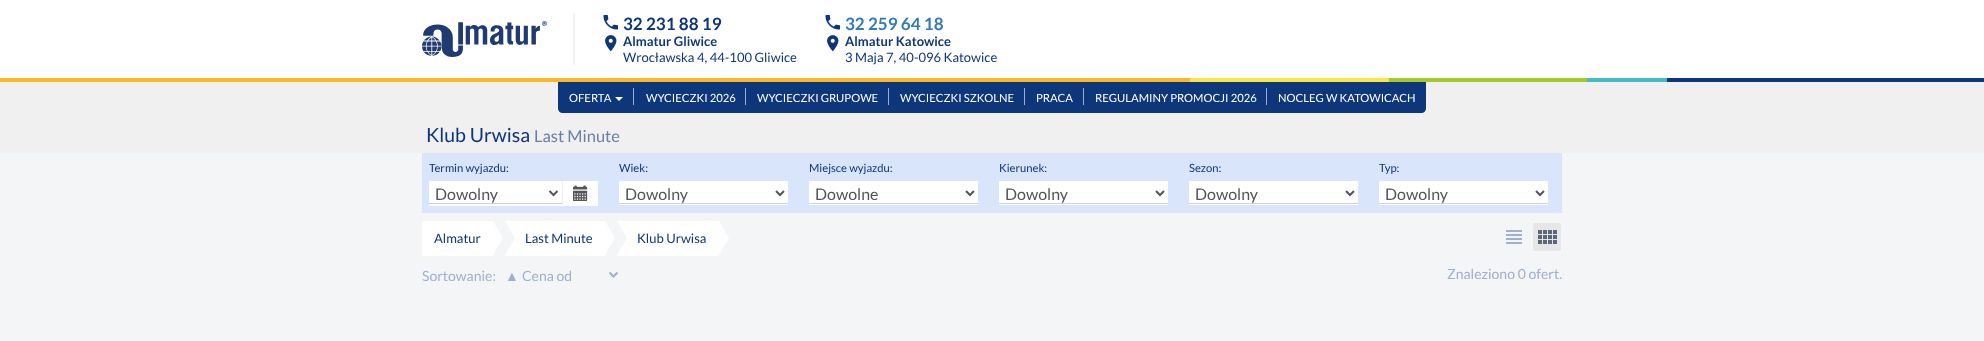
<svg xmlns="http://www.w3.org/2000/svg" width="1984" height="341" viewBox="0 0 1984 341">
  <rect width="100%" height="100%" fill="rgb(243,245,247)"/>
  <rect x="0" y="0" width="1984" height="78" fill="rgb(255,255,255)"/>
  <image x="422" y="21" width="125" height="36" href="pic1.png"/>
  <rect x="573" y="13" width="2" height="52" fill="rgb(242,242,242)"/>
  <image x="603" y="14" width="16" height="16" href="pic2.png"/>
  <text x="623" y="30" font-family="Lato" font-size="17" font-weight="bold" fill="rgb(14,54,122)">32 231 88 19</text>
  <image x="605" y="35" width="12" height="17" href="pic3.png"/>
  <text x="623" y="46" font-family="Lato" font-size="13" font-weight="bold" fill="rgb(14,54,122)">Almatur Gliwice</text>
  <text x="623" y="62" font-family="Lato" font-size="13" fill="rgb(14,54,122)">Wrocławska 4, 44-100 Gliwice</text>
  <image x="825" y="14" width="16" height="16" href="pic2.png"/>
  <text x="845" y="30" font-family="Lato" font-size="17" font-weight="bold" fill="rgb(51,122,183)">32 259 64 18</text>
  <image x="827" y="35" width="12" height="17" href="pic3.png"/>
  <text x="845" y="46" font-family="Lato" font-size="13" font-weight="bold" fill="rgb(14,54,122)">Almatur Katowice</text>
  <text x="845" y="62" font-family="Lato" font-size="13" fill="rgb(14,54,122)">3 Maja 7, 40-096 Katowice</text>
  <rect x="1667" y="78" width="317" height="4" fill="rgb(14,54,122)"/>
  <rect x="0" y="78" width="1190" height="4" fill="rgb(250,183,38)"/>
  <rect x="1190" y="78" width="199" height="4" fill="rgb(251,230,67)"/>
  <rect x="1389" y="78" width="198" height="4" fill="rgb(166,200,43)"/>
  <rect x="1587" y="78" width="80" height="4" fill="rgb(67,188,198)"/>
  <rect x="0" y="82" width="1984" height="71" fill="rgb(240,240,240)"/>
  <path d="M558 82H1426V108C1426 111 1424 113 1421 113H563C560 113 558 111 558 108Z" fill="rgb(14,54,122)"/>
  <text x="569" y="102" font-family="Lato" font-size="11.25" fill="rgb(255,255,255)">OFERTA</text>
  <path d="M615 97H623L619 101Z" fill="rgb(255,255,255)"/>
  <rect x="633" y="88" width="1" height="17" fill="rgb(159,175,202)"/>
  <text x="646" y="102" font-family="Lato" font-size="11.25" fill="rgb(255,255,255)">WYCIECZKI 2026</text>
  <rect x="745" y="88" width="1" height="17" fill="rgb(159,175,202)"/>
  <text x="757" y="102" font-family="Lato" font-size="11.25" fill="rgb(255,255,255)">WYCIECZKI GRUPOWE</text>
  <rect x="888" y="88" width="1" height="17" fill="rgb(159,175,202)"/>
  <text x="900" y="102" font-family="Lato" font-size="11.25" fill="rgb(255,255,255)">WYCIECZKI SZKOLNE</text>
  <rect x="1024" y="88" width="1" height="17" fill="rgb(159,175,202)"/>
  <text x="1036" y="102" font-family="Lato" font-size="11.25" fill="rgb(255,255,255)">PRACA</text>
  <rect x="1083" y="88" width="1" height="17" fill="rgb(159,175,202)"/>
  <text x="1095" y="102" font-family="Lato" font-size="11.25" fill="rgb(255,255,255)">REGULAMINY PROMOCJI 2026</text>
  <rect x="1266" y="88" width="1" height="17" fill="rgb(159,175,202)"/>
  <text x="1278" y="102" font-family="Lato" font-size="11.25" fill="rgb(255,255,255)">NOCLEG W KATOWICACH</text>
  <text x="426" y="142" font-family="Lato" font-size="19.5" fill="rgb(14,54,122)">Klub Urwisa</text>
  <text x="534" y="142" font-family="Lato" font-size="16.5" fill="rgb(104,128,169)">Last Minute</text>
  <rect x="422" y="153" width="1140" height="60" fill="rgb(217,229,251)"/>
  <text x="429" y="172" font-family="Lato" font-size="11.25" fill="rgb(14,54,122)">Termin wyjazdu:</text>
  <rect x="429" y="181" width="169" height="25" fill="rgb(255,255,255)"/>
  <rect x="562" y="181" width="1" height="24" fill="rgb(241,241,241)"/>
  <rect x="429" y="203" width="133" height="1" fill="rgb(210,210,210)"/>
  <path d="M549.5 191L553.5 195L557.5 191" fill="none" stroke="rgb(85,85,85)" stroke-width="2"/>
  <text x="435" y="200" font-family="Lato" font-size="16" fill="rgb(85,85,85)">Dowolny</text>
  <image x="573" y="185" width="15" height="16" href="pic4.png"/>
  <text x="619" y="172" font-family="Lato" font-size="11.25" fill="rgb(14,54,122)">Wiek:</text>
  <rect x="619" y="181" width="169" height="24" fill="rgb(255,255,255)"/>
  <rect x="619" y="203" width="169" height="1" fill="rgb(210,210,210)"/>
  <path d="M776 191L780 195L784 191" fill="none" stroke="rgb(85,85,85)" stroke-width="2"/>
  <text x="625" y="200" font-family="Lato" font-size="16" fill="rgb(85,85,85)">Dowolny</text>
  <text x="809" y="172" font-family="Lato" font-size="11.25" fill="rgb(14,54,122)">Miejsce wyjazdu:</text>
  <rect x="809" y="181" width="169" height="24" fill="rgb(255,255,255)"/>
  <rect x="809" y="203" width="169" height="1" fill="rgb(210,210,210)"/>
  <path d="M966 191L970 195L974 191" fill="none" stroke="rgb(85,85,85)" stroke-width="2"/>
  <text x="815" y="200" font-family="Lato" font-size="16" fill="rgb(85,85,85)">Dowolne</text>
  <text x="999" y="172" font-family="Lato" font-size="11.25" fill="rgb(14,54,122)">Kierunek:</text>
  <rect x="999" y="181" width="169" height="24" fill="rgb(255,255,255)"/>
  <rect x="999" y="203" width="169" height="1" fill="rgb(210,210,210)"/>
  <path d="M1156 191L1160 195L1164 191" fill="none" stroke="rgb(85,85,85)" stroke-width="2"/>
  <text x="1005" y="200" font-family="Lato" font-size="16" fill="rgb(85,85,85)">Dowolny</text>
  <text x="1189" y="172" font-family="Lato" font-size="11.25" fill="rgb(14,54,122)">Sezon:</text>
  <rect x="1189" y="181" width="169" height="24" fill="rgb(255,255,255)"/>
  <rect x="1189" y="203" width="169" height="1" fill="rgb(210,210,210)"/>
  <path d="M1346 191L1350 195L1354 191" fill="none" stroke="rgb(85,85,85)" stroke-width="2"/>
  <text x="1195" y="200" font-family="Lato" font-size="16" fill="rgb(85,85,85)">Dowolny</text>
  <text x="1379" y="172" font-family="Lato" font-size="11.25" fill="rgb(14,54,122)">Typ:</text>
  <rect x="1379" y="181" width="169" height="24" fill="rgb(255,255,255)"/>
  <rect x="1379" y="203" width="169" height="1" fill="rgb(210,210,210)"/>
  <path d="M1536 191L1540 195L1544 191" fill="none" stroke="rgb(85,85,85)" stroke-width="2"/>
  <text x="1385" y="200" font-family="Lato" font-size="16" fill="rgb(85,85,85)">Dowolny</text>
  <rect x="422" y="221" width="71" height="35" fill="rgb(255,255,255)"/>
  <text x="434" y="243" font-family="Lato" font-size="13" fill="rgb(14,54,122)">Almatur</text>
  <path d="M493 255V221L503 238Z" fill="rgb(255,255,255)"/>
  <rect x="505" y="221" width="100" height="35" fill="rgb(255,255,255)"/>
  <path d="M505 255V221L515 238Z" fill="rgb(243,245,247)"/>
  <text x="525" y="243" font-family="Lato" font-size="13" fill="rgb(14,54,122)">Last Minute</text>
  <path d="M605 255V221L615 238Z" fill="rgb(255,255,255)"/>
  <rect x="617" y="221" width="102" height="35" fill="rgb(255,255,255)"/>
  <path d="M617 255V221L627 238Z" fill="rgb(243,245,247)"/>
  <text x="637" y="243" font-family="Lato" font-size="13" fill="rgb(14,54,122)">Klub Urwisa</text>
  <path d="M719 255V221L729 238Z" fill="rgb(255,255,255)"/>
  <image x="1506" y="230" width="16" height="14" href="pic5.png"/>
  <rect x="1533" y="223" width="28" height="28" rx="2" fill="rgb(230,230,230)"/>
  <image x="1538" y="230" width="19" height="14" href="pic6.png"/>
  <text x="422" y="281" font-family="Lato" font-size="14" fill="rgb(158,176,208)">Sortowanie:</text>
  <path d="M609.5 272.5L613.5 276.5L617.5 272.5" fill="none" stroke="rgb(158,176,208)" stroke-width="2"/>
  <text x="505" y="281" font-family="Liberation Sans" font-size="14" fill="rgb(158,176,208)">▲</text>
  <g font-family="Lato" font-size="14" fill="rgb(158,176,208)">
    <text x="522" y="281">Cena od</text>
    <text x="1447" y="279">Znaleziono 0 ofert.</text>
  </g>
</svg>
